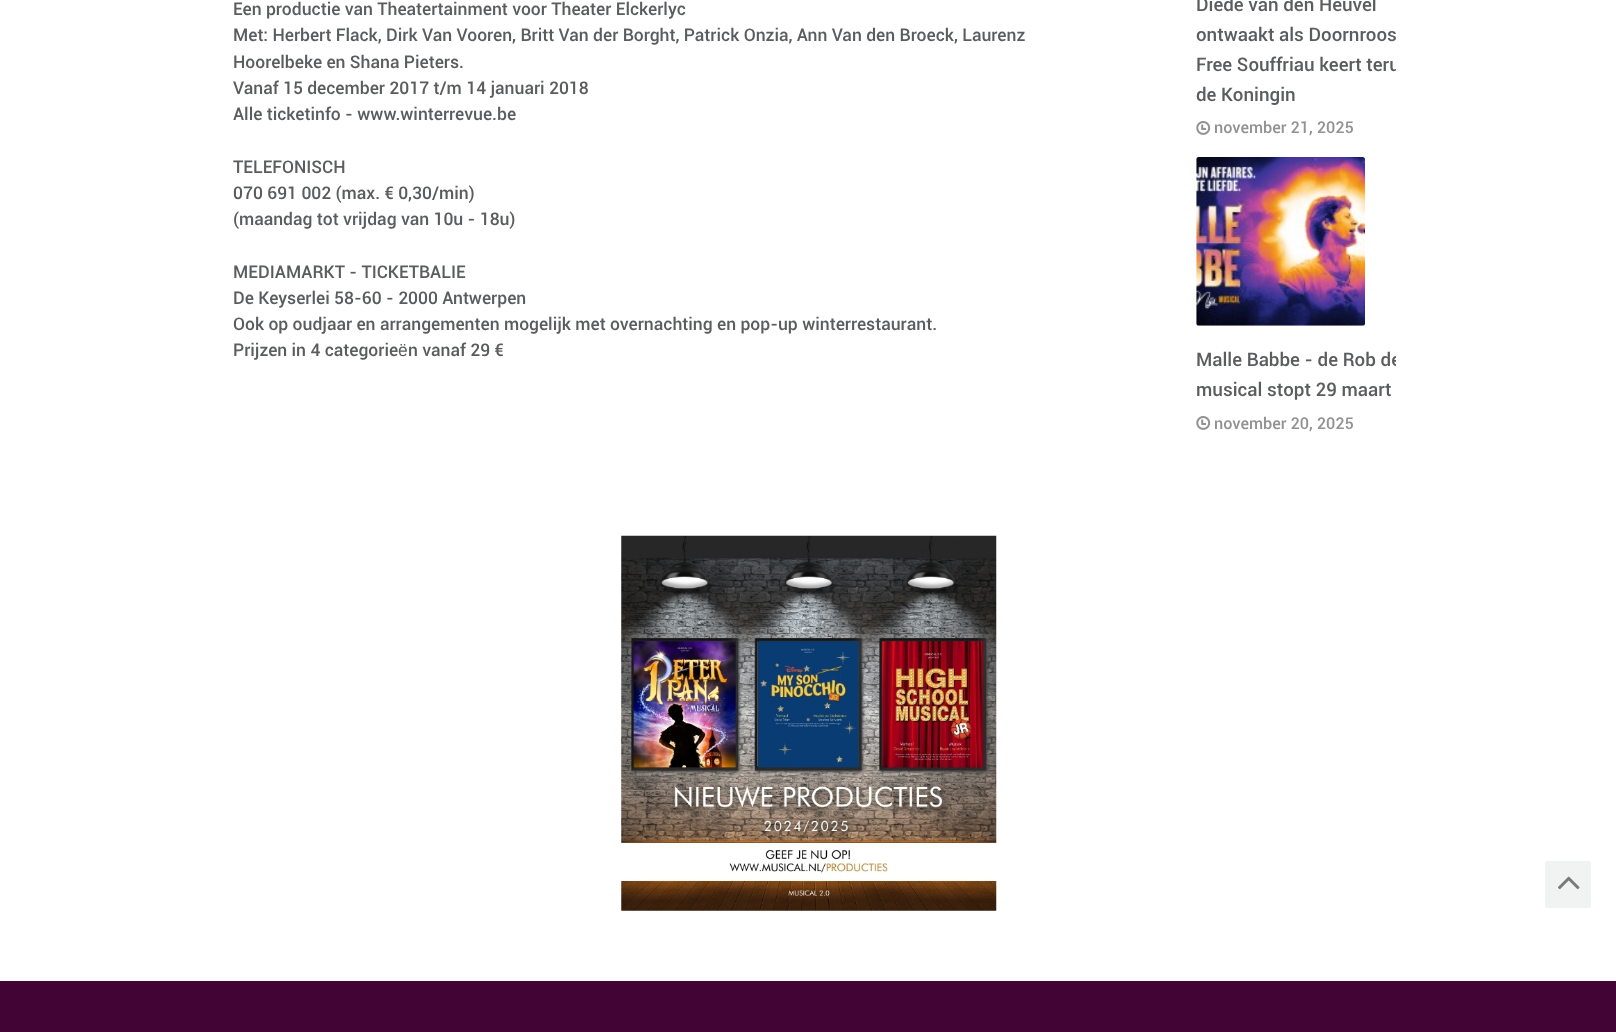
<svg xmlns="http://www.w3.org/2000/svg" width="1616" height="1032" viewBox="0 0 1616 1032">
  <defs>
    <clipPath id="clip1"><rect x="1196" y="0" width="200" height="454"/></clipPath>
  </defs>
  <rect width="100%" height="100%" fill="rgb(255,255,255)"/>
  <g font-family="Roboto" font-size="17.5" font-weight="500" fill="rgb(90,92,93)">
    <text>
      <tspan x="233" y="15">Een productie van Theatertainment voor Theater Elckerlyc</tspan>
      <tspan x="233" y="41">Met: Herbert Flack, Dirk Van Vooren, Britt Van der Borght, Patrick Onzia, Ann Van den Broeck, Laurenz</tspan>
      <tspan x="233" y="68">Hoorelbeke en Shana Pieters.</tspan>
      <tspan x="233" y="94">Vanaf 15 december 2017 t/m 14 januari 2018</tspan>
      <tspan x="233" y="120">Alle ticketinfo - www.winterrevue.be</tspan>
    </text>
    <text>
      <tspan x="233" y="173">TELEFONISCH</tspan>
      <tspan x="233" y="199">070 691 002 (max. € 0,30/min)</tspan>
      <tspan x="233" y="225">(maandag tot vrijdag van 10u - 18u)</tspan>
    </text>
    <text>
      <tspan x="233" y="278">MEDIAMARKT - TICKETBALIE</tspan>
      <tspan x="233" y="304">De Keyserlei 58-60 - 2000 Antwerpen</tspan>
      <tspan x="233" y="330">Ook op oudjaar en arrangementen mogelijk met overnachting en pop-up winterrestaurant.</tspan>
      <tspan x="233" y="356">Prijzen in 4 categorie</tspan>
    </text>
  </g>
  <text x="398" y="356" font-family="Liberation Sans" font-size="17.5" fill="rgb(90,92,93)">ë</text>
  <text x="408" y="356" font-family="Roboto" font-size="17.5" font-weight="500" fill="rgb(90,92,93)">n vanaf 29 €</text>
  <g font-family="Roboto" font-size="18.75" font-weight="500" fill="rgb(90,92,93)">
    <text>
      <tspan x="1196" y="11">Diede van den Heuvel</tspan>
      <tspan x="1196" y="41">ontwaakt als Doornroos</tspan>
    </text>
  </g>
  <g clip-path="url(#clip1)">
    <text x="1196" y="71" font-family="Roboto" font-size="18.75" font-weight="500" fill="rgb(90,92,93)">Free Souffriau keert teru</text>
  </g>
  <text x="1196" y="101" font-family="Roboto" font-size="18.75" font-weight="500" fill="rgb(90,92,93)">de Koningin</text>
  <image x="1196" y="121" width="15" height="14" href="pic1.png"/>
  <text x="1214" y="133" font-family="Roboto" font-size="16.25" font-weight="500" fill="rgb(146,146,146)">november 21, 2025</text>
  <image x="1196" y="157" width="169" height="169" href="pic2.png"/>
  <g clip-path="url(#clip1)">
    <text x="1196" y="366" font-family="Roboto" font-size="18.75" font-weight="500" fill="rgb(90,92,93)">Malle Babbe - de Rob de</text>
  </g>
  <text x="1196" y="396" font-family="Roboto" font-size="18.75" font-weight="500" fill="rgb(90,92,93)">musical stopt 29 maart</text>
  <image x="1196" y="416" width="15" height="14" href="pic1.png"/>
  <text x="1214" y="429" font-family="Roboto" font-size="16.25" font-weight="500" fill="rgb(146,146,146)">november 20, 2025</text>
  <image x="621" y="535" width="376" height="376" href="pic3.png"/>
  <rect x="0" y="981" width="1616" height="51" fill="rgb(66,4,53)"/>
  <rect x="1545" y="861" width="46" height="47" rx="2.5" fill="rgb(241,242,242)"/>
  <image x="1558" y="876" width="22" height="14" href="pic4.png"/>
</svg>
